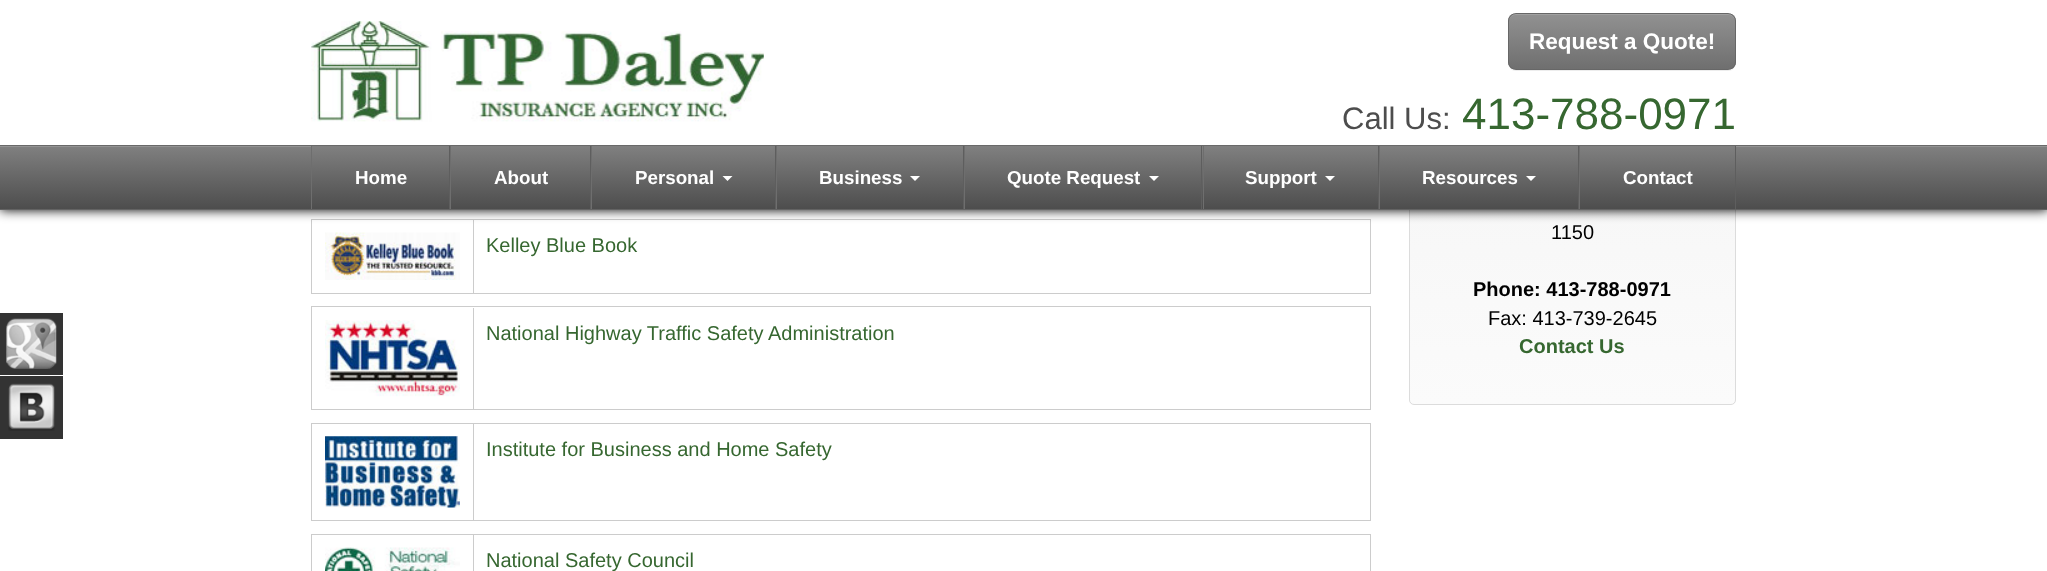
<svg xmlns="http://www.w3.org/2000/svg" width="2047" height="571" viewBox="0 0 2047 571">
  <defs>
    <clipPath id="clip1"><rect x="1409" y="-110" width="327" height="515" rx="5"/></clipPath>
    <linearGradient id="g1" gradientUnits="userSpaceOnUse" x1="1573" y1="-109" x2="1573" y2="404"><stop offset="0" stop-color="rgb(241,241,241)"/><stop offset="1" stop-color="rgb(251,251,251)"/></linearGradient>
    <clipPath id="clip2"><rect x="1508" y="13" width="228" height="57" rx="8"/></clipPath>
    <linearGradient id="g2" gradientUnits="userSpaceOnUse" x1="1622" y1="14" x2="1622" y2="69"><stop offset="0" stop-color="rgb(145,145,145)"/><stop offset="1" stop-color="rgb(111,111,111)"/></linearGradient>
    <linearGradient id="g3" gradientUnits="userSpaceOnUse" x1="1024" y1="146" x2="1024" y2="209"><stop offset="0" stop-color="rgb(128,128,128)"/><stop offset="1" stop-color="rgb(77,77,77)"/></linearGradient>
  </defs>
  <rect width="100%" height="100%" fill="rgb(255,255,255)"/>
  <rect x="311.5" y="219.5" width="1059" height="74" fill="none" stroke="rgb(204,204,204)"/>
  <rect x="473" y="220" width="1" height="73" fill="rgb(204,204,204)"/>
  <g clip-path="url(#clip1)">
    <rect x="1409" y="210" width="327" height="194" fill="url(#g1)"/>
  </g>
  <rect x="1409.5" y="-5.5" width="326" height="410" rx="4.5" fill="none" stroke="rgb(220,220,220)"/>
  <rect x="0" y="0" width="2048" height="210" fill="rgb(0,0,0)" filter="blur(6px)"/>
  <rect x="0" y="0" width="2047" height="145" fill="rgb(255,255,255)"/>
  <image x="311" y="21" width="453" height="101" href="pic1.png"/>
  <rect x="1508" y="14" width="228" height="57" rx="8" fill="rgba(0,0,0,0.07)" filter="blur(0.5px)"/>
  <g clip-path="url(#clip2)">
    <rect x="1508" y="14" width="228" height="55" fill="url(#g2)"/>
  </g>
  <path d="M1515 15H1729C1732 15 1735 18 1735 21V20C1735 17 1732 14 1729 14H1515C1512 14 1509 17 1509 20V21C1509 18 1512 15 1515 15Z" fill="rgb(161,161,161)"/>
  <rect x="1508.5" y="13.5" width="227" height="56" rx="7.5" fill="none" stroke="rgb(103,103,103)"/>
  <text x="1529" y="49" font-family="Liberation Sans" font-size="22.5" font-weight="bold" fill="rgb(255,255,255)">Request a Quote!</text>
  <text x="1342" y="129" font-family="Liberation Sans" font-size="31" fill="rgb(77,77,77)">Call Us:</text>
  <text x="1462" y="129" font-family="Liberation Sans" font-size="44" fill="rgb(54,103,48)">413-788-0971</text>
  <rect x="0" y="147" width="2047" height="62" fill="url(#g3)"/>
  <rect x="0" y="146" width="2047" height="1" fill="rgb(147,147,147)"/>
  <rect x="0" y="145" width="2047" height="1" fill="rgb(105,105,105)"/>
  <rect x="0" y="209" width="2047" height="1" fill="rgb(99,99,99)"/>
  <rect x="312" y="146" width="1423" height="1" fill="url(#g3)"/>
  <rect x="449" y="146" width="1" height="63" fill="rgb(94,94,94)"/>
  <rect x="311" y="146" width="1" height="63" fill="rgb(110,110,110)"/>
  <text x="355" y="184" font-family="Liberation Sans" font-size="18.75" font-weight="bold" fill="rgb(255,255,255)">Home</text>
  <rect x="590" y="146" width="1" height="63" fill="rgb(94,94,94)"/>
  <rect x="450" y="146" width="1" height="63" fill="rgb(110,110,110)"/>
  <text x="494" y="184" font-family="Liberation Sans" font-size="18.75" font-weight="bold" fill="rgb(255,255,255)">About</text>
  <rect x="775" y="146" width="1" height="63" fill="rgb(94,94,94)"/>
  <rect x="591" y="146" width="1" height="63" fill="rgb(110,110,110)"/>
  <text x="635" y="184" font-family="Liberation Sans" font-size="18.75" font-weight="bold" fill="rgb(255,255,255)">Personal</text>
  <path d="M722.5 176H732.5L727.5 181Z" fill="rgb(255,255,255)"/>
  <rect x="963" y="146" width="1" height="63" fill="rgb(94,94,94)"/>
  <rect x="776" y="146" width="1" height="63" fill="rgb(110,110,110)"/>
  <text x="819" y="184" font-family="Liberation Sans" font-size="18.75" font-weight="bold" fill="rgb(255,255,255)">Business</text>
  <path d="M910 176H920L915 181Z" fill="rgb(255,255,255)"/>
  <rect x="1201" y="146" width="1" height="63" fill="rgb(94,94,94)"/>
  <rect x="964" y="146" width="1" height="63" fill="rgb(110,110,110)"/>
  <text x="1007" y="184" font-family="Liberation Sans" font-size="18.75" font-weight="bold" fill="rgb(255,255,255)">Quote Request</text>
  <path d="M1149 176H1159L1154 181Z" fill="rgb(255,255,255)"/>
  <rect x="1378" y="146" width="1" height="63" fill="rgb(94,94,94)"/>
  <rect x="1203" y="146" width="1" height="63" fill="rgb(110,110,110)"/>
  <text x="1245" y="184" font-family="Liberation Sans" font-size="18.75" font-weight="bold" fill="rgb(255,255,255)">Support</text>
  <path d="M1325 176H1335L1330 181Z" fill="rgb(255,255,255)"/>
  <rect x="1578" y="146" width="1" height="63" fill="rgb(94,94,94)"/>
  <rect x="1379" y="146" width="1" height="63" fill="rgb(110,110,110)"/>
  <text x="1422" y="184" font-family="Liberation Sans" font-size="18.75" font-weight="bold" fill="rgb(255,255,255)">Resources</text>
  <path d="M1526 176H1536L1531 181Z" fill="rgb(255,255,255)"/>
  <rect x="1735" y="146" width="1" height="63" fill="rgb(94,94,94)"/>
  <rect x="1579" y="146" width="1" height="63" fill="rgb(110,110,110)"/>
  <text x="1623" y="184" font-family="Liberation Sans" font-size="18.75" font-weight="bold" fill="rgb(255,255,255)">Contact</text>
  <rect x="0" y="313" width="63" height="62" fill="rgb(51,51,51)"/>
  <image x="6" y="318" width="51" height="51" href="pic2.png"/>
  <rect x="0" y="376" width="63" height="63" fill="rgb(51,51,51)"/>
  <image x="8" y="383" width="47" height="48" href="pic3.png"/>
  <image x="325" y="232" width="135" height="48" href="pic4.png"/>
  <text x="486" y="252" font-family="Liberation Sans" font-size="20" fill="rgb(54,103,48)">Kelley Blue Book</text>
  <rect x="311.5" y="306.5" width="1059" height="103" fill="none" stroke="rgb(204,204,204)"/>
  <rect x="473" y="308" width="1" height="101" fill="rgb(204,204,204)"/>
  <image x="325" y="320" width="135" height="77" href="pic5.png"/>
  <text x="486" y="340" font-family="Liberation Sans" font-size="20" fill="rgb(54,103,48)">National Highway Traffic Safety Administration</text>
  <rect x="311.5" y="423.5" width="1059" height="97" fill="none" stroke="rgb(204,204,204)"/>
  <rect x="473" y="424" width="1" height="96" fill="rgb(204,204,204)"/>
  <image x="325" y="436" width="135" height="72" href="pic6.png"/>
  <text x="486" y="456" font-family="Liberation Sans" font-size="20" fill="rgb(54,103,48)">Institute for Business and Home Safety</text>
  <rect x="311.5" y="534.5" width="1059" height="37" fill="none" stroke="rgb(204,204,204)"/>
  <rect x="473" y="535" width="1" height="36" fill="rgb(204,204,204)"/>
  <image x="325" y="547" width="135" height="24" href="pic7.png"/>
  <text x="486" y="567" font-family="Liberation Sans" font-size="20" fill="rgb(54,103,48)">National Safety Council</text>
  <text x="1551" y="239" font-family="Liberation Sans" font-size="20" fill="rgb(0,0,0)">1150</text>
  <text x="1473" y="296" font-family="Liberation Sans" font-size="20" font-weight="bold" fill="rgb(0,0,0)">Phone: 413-788-0971</text>
  <text x="1488" y="325" font-family="Liberation Sans" font-size="20" fill="rgb(0,0,0)">Fax: 413-739-2645</text>
  <text x="1519" y="353" font-family="Liberation Sans" font-size="20" font-weight="bold" fill="rgb(54,103,48)">Contact Us</text>
</svg>
